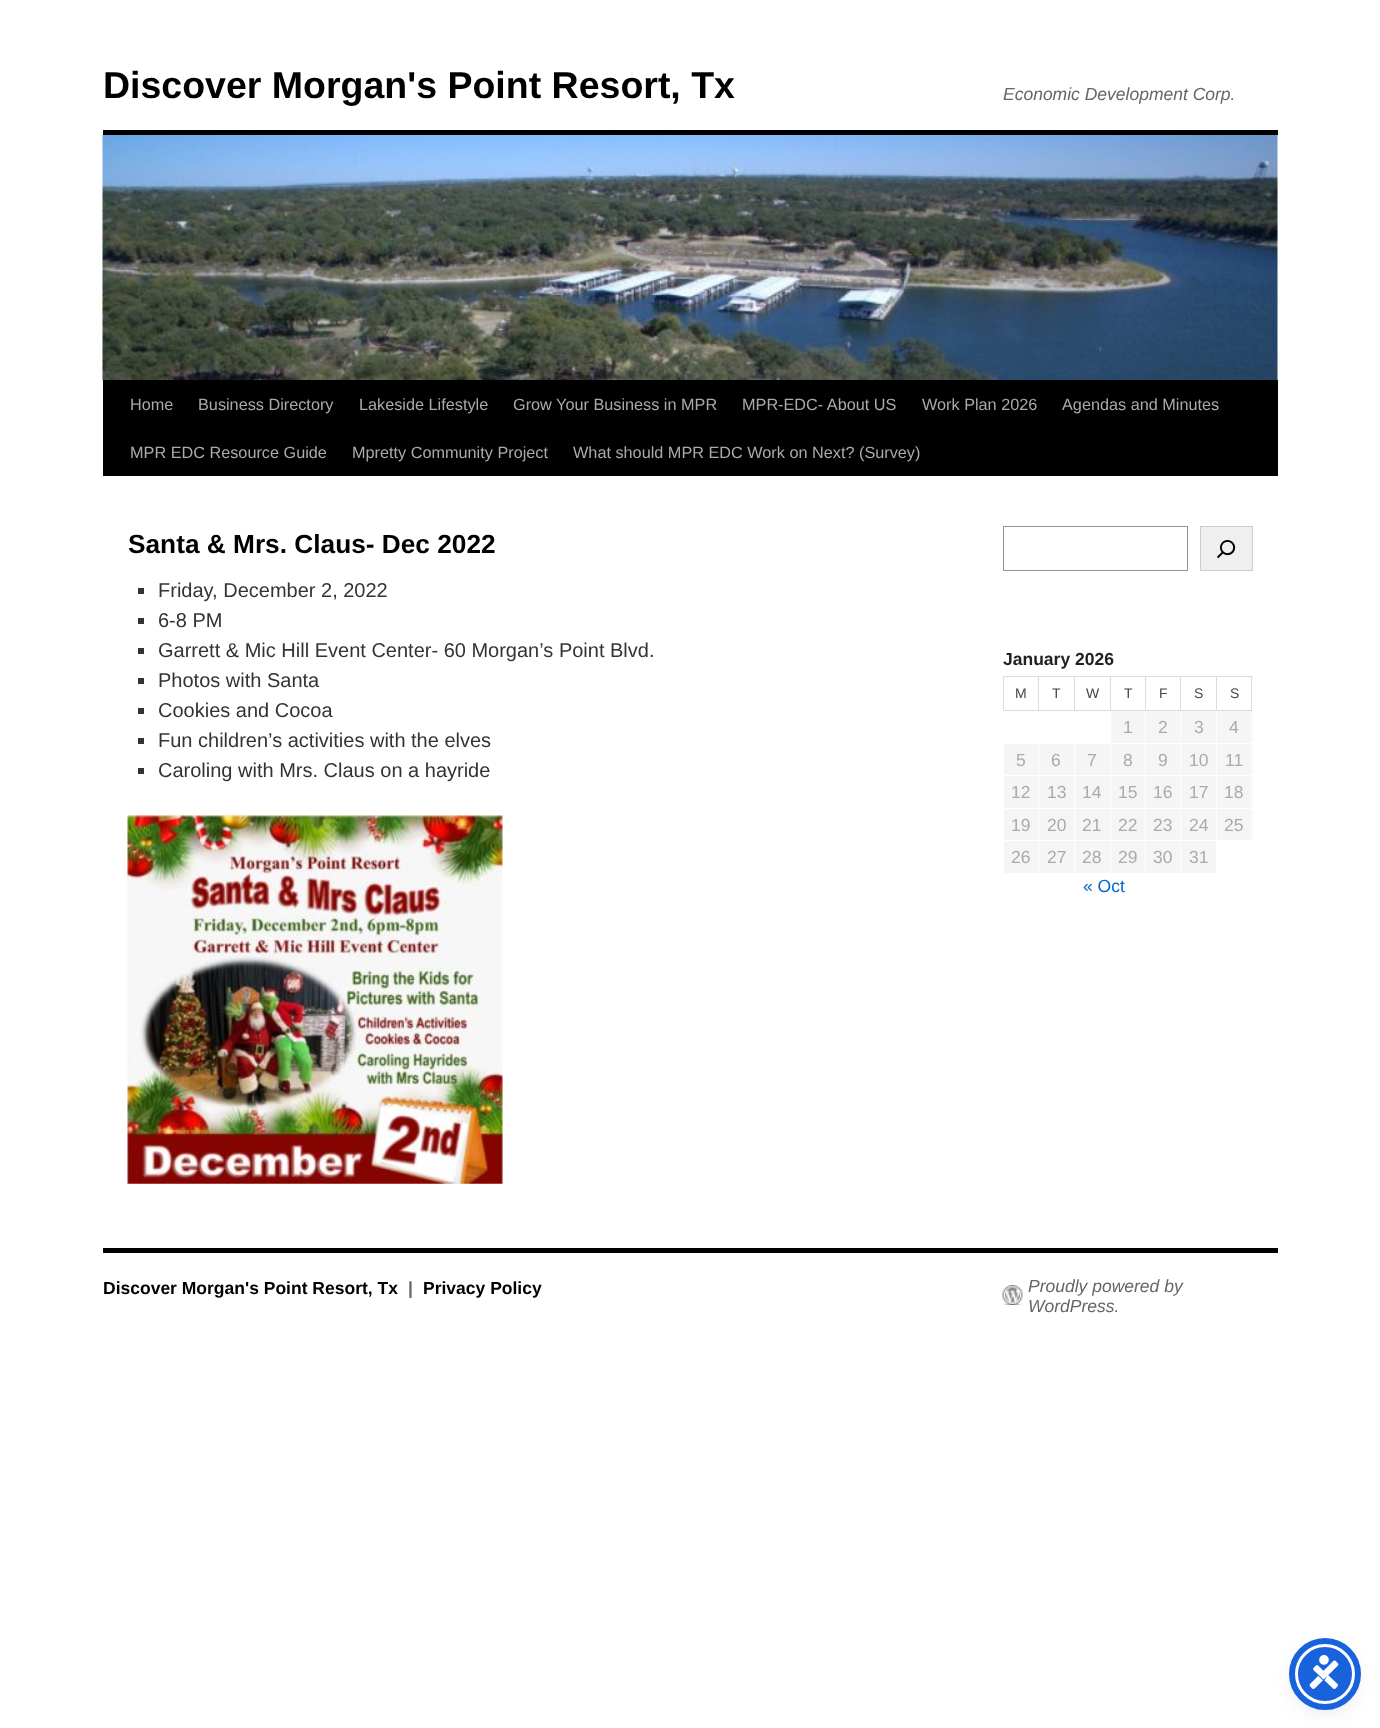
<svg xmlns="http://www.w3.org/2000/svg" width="1380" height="1728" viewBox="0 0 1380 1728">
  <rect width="100%" height="100%" fill="rgb(255,255,255)"/>
  <text x="103" y="98" font-family="Liberation Sans" font-size="37.5" font-weight="bold" fill="rgb(0,0,0)">Discover Morgan's Point Resort, Tx</text>
  <text x="1003" y="100" font-family="Liberation Sans" font-size="17.5" font-style="italic" fill="rgb(102,102,102)">Economic Development Corp.</text>
  <rect x="103" y="130" width="1175" height="5" fill="rgb(0,0,0)"/>
  <rect x="103" y="380" width="1175" height="96" fill="rgb(0,0,0)"/>
  <image x="102" y="135" width="1176" height="245" href="pic1.png"/>
  <g font-family="Liberation Sans" font-size="16.25" fill="rgb(170,170,170)">
    <text x="130" y="410">Home</text>
    <text x="198" y="410">Business Directory</text>
    <text x="359" y="410">Lakeside Lifestyle</text>
    <text x="513" y="410">Grow Your Business in MPR</text>
    <text x="742" y="410">MPR-EDC- About US</text>
    <text x="922" y="410">Work Plan 2026</text>
    <text x="1062" y="410">Agendas and Minutes</text>
    <text x="130" y="458">MPR EDC Resource Guide</text>
    <text x="352" y="458">Mpretty Community Project</text>
    <text x="573" y="458">What should MPR EDC Work on Next? (Survey)</text>
  </g>
  <text x="128" y="553" font-family="Liberation Sans" font-size="26.25" font-weight="bold" fill="rgb(0,0,0)">Santa &amp; Mrs. Claus- Dec 2022</text>
  <rect x="138" y="588" width="6" height="6" fill="rgb(51,51,51)"/>
  <text x="158" y="597" font-family="Liberation Sans" font-size="20" fill="rgb(51,51,51)">Friday, December 2, 2022</text>
  <rect x="138" y="618" width="6" height="6" fill="rgb(51,51,51)"/>
  <text x="158" y="627" font-family="Liberation Sans" font-size="20" fill="rgb(51,51,51)">6-8 PM</text>
  <rect x="138" y="648" width="6" height="6" fill="rgb(51,51,51)"/>
  <text x="158" y="657" font-family="Liberation Sans" font-size="20" fill="rgb(51,51,51)">Garrett &amp; Mic Hill Event Center- 60 Morgan’s Point Blvd.</text>
  <rect x="138" y="678" width="6" height="6" fill="rgb(51,51,51)"/>
  <text x="158" y="687" font-family="Liberation Sans" font-size="20" fill="rgb(51,51,51)">Photos with Santa</text>
  <rect x="138" y="708" width="6" height="6" fill="rgb(51,51,51)"/>
  <text x="158" y="717" font-family="Liberation Sans" font-size="20" fill="rgb(51,51,51)">Cookies and Cocoa</text>
  <rect x="138" y="738" width="6" height="6" fill="rgb(51,51,51)"/>
  <text x="158" y="747" font-family="Liberation Sans" font-size="20" fill="rgb(51,51,51)">Fun children’s activities with the elves</text>
  <rect x="138" y="768" width="6" height="6" fill="rgb(51,51,51)"/>
  <text x="158" y="777" font-family="Liberation Sans" font-size="20" fill="rgb(51,51,51)">Caroling with Mrs. Claus on a hayride</text>
  <image x="127" y="815" width="376" height="369" href="pic2.png"/>
  <rect x="1003.5" y="526.5" width="184" height="44" fill="none" stroke="rgb(148,148,148)"/>
  <rect x="1200.5" y="526.5" width="52" height="44" fill="rgb(239,239,239)" stroke="rgb(204,204,204)"/>
  <image x="1217" y="540" width="19" height="19" href="pic3.png"/>
  <text x="1003" y="665" font-family="Liberation Sans" font-size="17.5" font-weight="bold" fill="rgb(34,34,34)">January 2026</text>
  <rect x="1216" y="676" width="37" height="1" fill="rgb(221,221,221)"/>
  <rect x="1217" y="711" width="36" height="32" fill="rgb(245,245,245)"/>
  <rect x="1217" y="744" width="36" height="31" fill="rgb(245,245,245)"/>
  <rect x="1217" y="776" width="36" height="32" fill="rgb(245,245,245)"/>
  <rect x="1217" y="809" width="36" height="31" fill="rgb(245,245,245)"/>
  <rect x="1251" y="710" width="1" height="131" fill="rgb(255,255,255)"/>
  <rect x="1251" y="676" width="1" height="35" fill="rgb(221,221,221)"/>
  <rect x="1216" y="710" width="37" height="1" fill="rgb(221,221,221)"/>
  <rect x="1216" y="676" width="1" height="35" fill="rgb(221,221,221)"/>
  <rect x="1180" y="676" width="38" height="1" fill="rgb(221,221,221)"/>
  <rect x="1180" y="710" width="38" height="1" fill="rgb(221,221,221)"/>
  <rect x="1180" y="676" width="1" height="35" fill="rgb(221,221,221)"/>
  <rect x="1145" y="676" width="36" height="1" fill="rgb(221,221,221)"/>
  <rect x="1145" y="710" width="36" height="1" fill="rgb(221,221,221)"/>
  <rect x="1145" y="676" width="1" height="35" fill="rgb(221,221,221)"/>
  <rect x="1110" y="676" width="36" height="1" fill="rgb(221,221,221)"/>
  <rect x="1110" y="710" width="36" height="1" fill="rgb(221,221,221)"/>
  <rect x="1110" y="676" width="1" height="35" fill="rgb(221,221,221)"/>
  <rect x="1074" y="676" width="37" height="1" fill="rgb(221,221,221)"/>
  <rect x="1074" y="710" width="37" height="1" fill="rgb(221,221,221)"/>
  <rect x="1074" y="676" width="1" height="35" fill="rgb(221,221,221)"/>
  <rect x="1038" y="676" width="37" height="1" fill="rgb(221,221,221)"/>
  <rect x="1038" y="710" width="37" height="1" fill="rgb(221,221,221)"/>
  <rect x="1038" y="676" width="1" height="35" fill="rgb(221,221,221)"/>
  <rect x="1003" y="676" width="36" height="1" fill="rgb(221,221,221)"/>
  <rect x="1003" y="710" width="36" height="1" fill="rgb(221,221,221)"/>
  <rect x="1003" y="676" width="1" height="35" fill="rgb(221,221,221)"/>
  <g font-family="Liberation Sans" font-size="14" fill="rgb(64,70,77)">
    <text x="1015" y="698">M</text>
    <text x="1052" y="698">T</text>
    <text x="1086" y="698">W</text>
    <text x="1124" y="698">T</text>
    <text x="1159" y="698">F</text>
    <text x="1194" y="698">S</text>
    <text x="1230" y="698">S</text>
  </g>
  <rect x="1111" y="711" width="34" height="32" fill="rgb(245,245,245)"/>
  <text x="1123" y="733" font-family="Liberation Sans" font-size="17.5" fill="rgb(170,170,170)">1</text>
  <rect x="1146" y="711" width="34" height="32" fill="rgb(245,245,245)"/>
  <text x="1158" y="733" font-family="Liberation Sans" font-size="17.5" fill="rgb(170,170,170)">2</text>
  <rect x="1181" y="711" width="35" height="32" fill="rgb(245,245,245)"/>
  <g font-family="Liberation Sans" font-size="17.5" fill="rgb(170,170,170)">
    <text x="1194" y="733">3</text>
    <text x="1229" y="733">4</text>
  </g>
  <rect x="1004" y="744" width="34" height="31" fill="rgb(245,245,245)"/>
  <text x="1016" y="766" font-family="Liberation Sans" font-size="17.5" fill="rgb(170,170,170)">5</text>
  <rect x="1039" y="744" width="35" height="31" fill="rgb(245,245,245)"/>
  <text x="1051" y="766" font-family="Liberation Sans" font-size="17.5" fill="rgb(170,170,170)">6</text>
  <rect x="1075" y="744" width="35" height="31" fill="rgb(245,245,245)"/>
  <text x="1087" y="766" font-family="Liberation Sans" font-size="17.5" fill="rgb(170,170,170)">7</text>
  <rect x="1111" y="744" width="34" height="31" fill="rgb(245,245,245)"/>
  <text x="1123" y="766" font-family="Liberation Sans" font-size="17.5" fill="rgb(170,170,170)">8</text>
  <rect x="1146" y="744" width="34" height="31" fill="rgb(245,245,245)"/>
  <text x="1158" y="766" font-family="Liberation Sans" font-size="17.5" fill="rgb(170,170,170)">9</text>
  <rect x="1181" y="744" width="35" height="31" fill="rgb(245,245,245)"/>
  <g font-family="Liberation Sans" font-size="17.5" fill="rgb(170,170,170)">
    <text x="1189" y="766">10</text>
    <text x="1225" y="766">11</text>
  </g>
  <rect x="1004" y="776" width="34" height="32" fill="rgb(245,245,245)"/>
  <text x="1011" y="798" font-family="Liberation Sans" font-size="17.5" fill="rgb(170,170,170)">12</text>
  <rect x="1039" y="776" width="35" height="32" fill="rgb(245,245,245)"/>
  <text x="1047" y="798" font-family="Liberation Sans" font-size="17.5" fill="rgb(170,170,170)">13</text>
  <rect x="1075" y="776" width="35" height="32" fill="rgb(245,245,245)"/>
  <text x="1082" y="798" font-family="Liberation Sans" font-size="17.5" fill="rgb(170,170,170)">14</text>
  <rect x="1111" y="776" width="34" height="32" fill="rgb(245,245,245)"/>
  <text x="1118" y="798" font-family="Liberation Sans" font-size="17.5" fill="rgb(170,170,170)">15</text>
  <rect x="1146" y="776" width="34" height="32" fill="rgb(245,245,245)"/>
  <text x="1153" y="798" font-family="Liberation Sans" font-size="17.5" fill="rgb(170,170,170)">16</text>
  <rect x="1181" y="776" width="35" height="32" fill="rgb(245,245,245)"/>
  <g font-family="Liberation Sans" font-size="17.5" fill="rgb(170,170,170)">
    <text x="1189" y="798">17</text>
    <text x="1224" y="798">18</text>
  </g>
  <rect x="1004" y="809" width="34" height="31" fill="rgb(245,245,245)"/>
  <text x="1011" y="831" font-family="Liberation Sans" font-size="17.5" fill="rgb(170,170,170)">19</text>
  <rect x="1039" y="809" width="35" height="31" fill="rgb(245,245,245)"/>
  <text x="1047" y="831" font-family="Liberation Sans" font-size="17.5" fill="rgb(170,170,170)">20</text>
  <rect x="1075" y="809" width="35" height="31" fill="rgb(245,245,245)"/>
  <text x="1082" y="831" font-family="Liberation Sans" font-size="17.5" fill="rgb(170,170,170)">21</text>
  <rect x="1111" y="809" width="34" height="31" fill="rgb(245,245,245)"/>
  <text x="1118" y="831" font-family="Liberation Sans" font-size="17.5" fill="rgb(170,170,170)">22</text>
  <rect x="1146" y="809" width="34" height="31" fill="rgb(245,245,245)"/>
  <text x="1153" y="831" font-family="Liberation Sans" font-size="17.5" fill="rgb(170,170,170)">23</text>
  <rect x="1181" y="809" width="35" height="31" fill="rgb(245,245,245)"/>
  <g font-family="Liberation Sans" font-size="17.5" fill="rgb(170,170,170)">
    <text x="1189" y="831">24</text>
    <text x="1224" y="831">25</text>
  </g>
  <rect x="1004" y="841" width="34" height="32" fill="rgb(245,245,245)"/>
  <text x="1011" y="863" font-family="Liberation Sans" font-size="17.5" fill="rgb(170,170,170)">26</text>
  <rect x="1039" y="841" width="35" height="32" fill="rgb(245,245,245)"/>
  <text x="1047" y="863" font-family="Liberation Sans" font-size="17.5" fill="rgb(170,170,170)">27</text>
  <rect x="1075" y="841" width="35" height="32" fill="rgb(245,245,245)"/>
  <text x="1082" y="863" font-family="Liberation Sans" font-size="17.5" fill="rgb(170,170,170)">28</text>
  <rect x="1111" y="841" width="34" height="32" fill="rgb(245,245,245)"/>
  <text x="1118" y="863" font-family="Liberation Sans" font-size="17.5" fill="rgb(170,170,170)">29</text>
  <rect x="1146" y="841" width="34" height="32" fill="rgb(245,245,245)"/>
  <text x="1153" y="863" font-family="Liberation Sans" font-size="17.5" fill="rgb(170,170,170)">30</text>
  <rect x="1181" y="841" width="35" height="32" fill="rgb(245,245,245)"/>
  <text x="1189" y="863" font-family="Liberation Sans" font-size="17.5" fill="rgb(170,170,170)">31</text>
  <text x="1083" y="892" font-family="Liberation Sans" font-size="17.5" fill="rgb(0,102,204)">« Oct</text>
  <rect x="103" y="1248" width="1175" height="5" fill="rgb(0,0,0)"/>
  <text x="103" y="1294" font-family="Liberation Sans" font-size="17.5" font-weight="bold" fill="rgb(0,0,0)">Discover Morgan's Point Resort, Tx</text>
  <text x="408" y="1294" font-family="Liberation Sans" font-size="17.5" font-weight="bold" fill="rgb(102,102,102)">|</text>
  <text x="423" y="1294" font-family="Liberation Sans" font-size="17.5" font-weight="bold" fill="rgb(0,0,0)">Privacy Policy</text>
  <image x="1002" y="1285" width="21" height="20" href="pic4.png"/>
  <g font-family="Liberation Sans" font-size="17.5" font-style="italic" fill="rgb(102,102,102)">
    <text>
      <tspan x="1028" y="1292">Proudly powered by</tspan>
      <tspan x="1028" y="1312">WordPress.</tspan>
    </text>
  </g>
  <rect x="1295" y="1646" width="60" height="60" rx="30" fill="rgba(93,100,148,0.2)" filter="blur(2.5px)"/>
  <rect x="1295" y="1650" width="60" height="60" rx="30" fill="rgba(37,44,97,0.15)" filter="blur(9.5px)"/>
  <circle cx="1325" cy="1674" r="28.5" fill="rgb(24,99,220)" stroke="rgb(255,255,255)" stroke-width="3"/>
  <circle cx="1325" cy="1674" r="33" fill="none" stroke="rgb(24,99,220)" stroke-width="6"/>
  <image x="1309" y="1655" width="30" height="34" href="pic5.png"/>
</svg>
